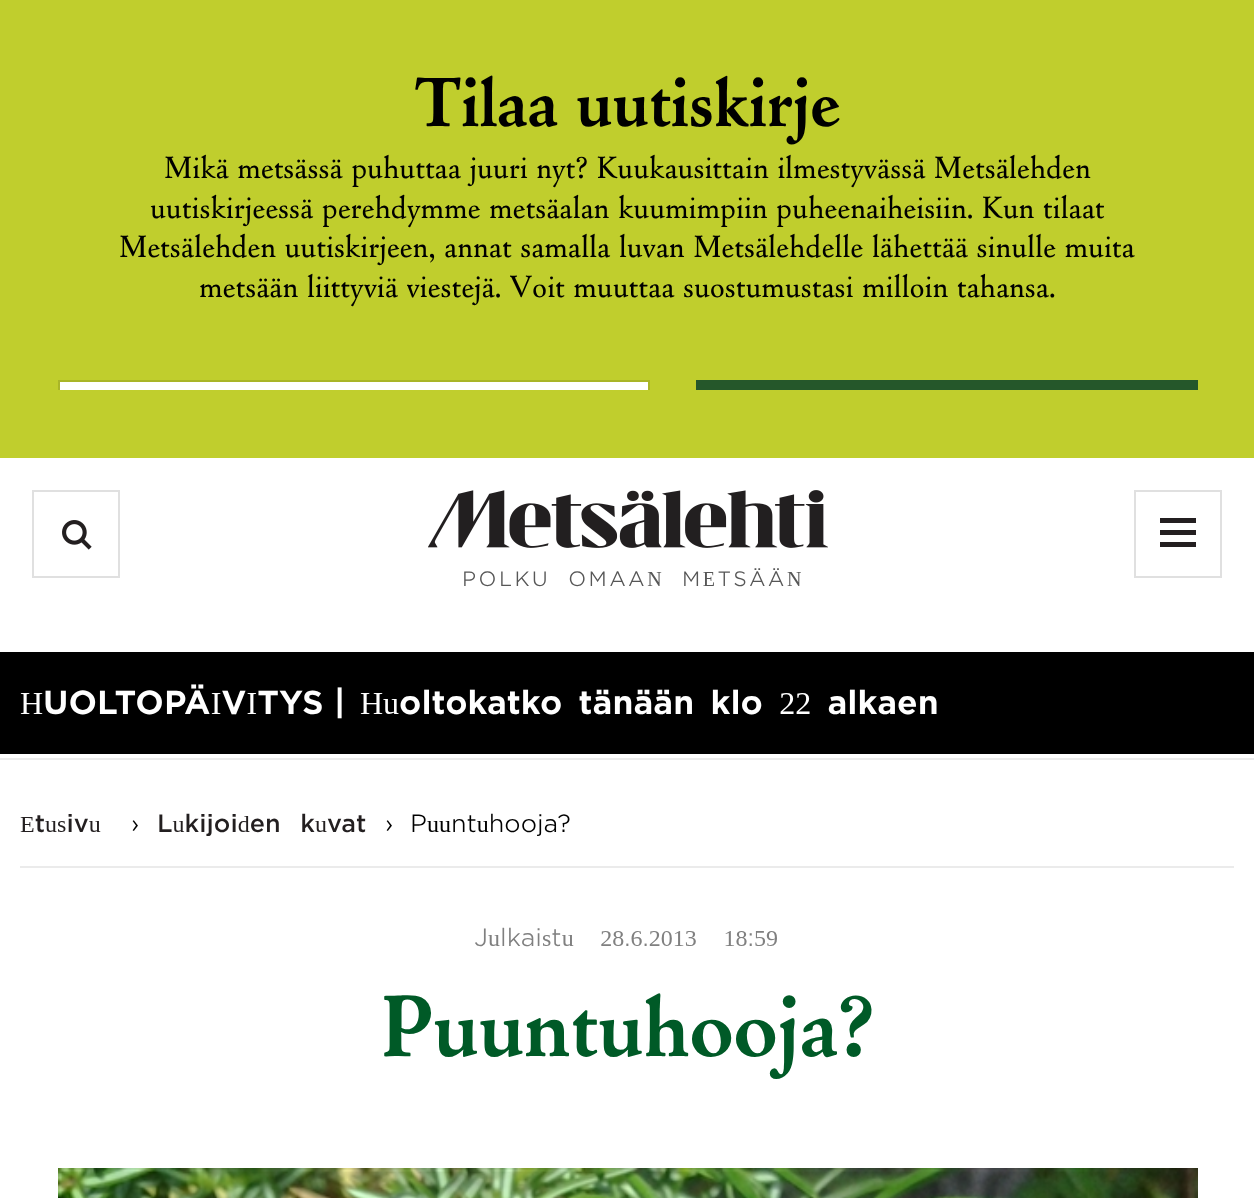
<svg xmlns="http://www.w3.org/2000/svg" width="1254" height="1198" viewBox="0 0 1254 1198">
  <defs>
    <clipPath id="clip1"><rect x="58" y="380" width="592" height="10"/></clipPath>
  </defs>
  <rect width="100%" height="100%" fill="rgb(255,255,255)"/>
  <rect x="0" y="0" width="1254" height="458" fill="rgb(192,206,45)"/>
  <text x="414" y="126" font-family="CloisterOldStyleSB" font-size="72" font-weight="bold" fill="rgb(0,0,0)">Tilaa uutiskirje</text>
  <g font-family="CloisterOldStyleSB" font-size="32" fill="rgb(0,0,0)">
    <text x="164" y="178">Mikä metsässä puhuttaa juuri nyt? Kuukausittain ilmestyvässä Metsälehden</text>
    <text x="150" y="218">uutiskirjeessä perehdymme metsäalan kuumimpiin puheenaiheisiin. Kun tilaat</text>
    <text x="119" y="257">Metsälehden uutiskirjeen, annat samalla luvan Metsälehdelle lähettää sinulle muita</text>
    <text x="199" y="297">metsään liittyviä viestejä. Voit muuttaa suostumustasi milloin tahansa.</text>
  </g>
  <rect x="60" y="382" width="588" height="8" fill="rgb(255,255,255)"/>
  <g clip-path="url(#clip1)">
    <rect x="59" y="381" width="590" height="88" fill="none" stroke="rgb(169,181,40)" stroke-width="2"/>
  </g>
  <rect x="696" y="380" width="502" height="10" fill="rgb(37,87,42)"/>
  <rect x="0" y="758" width="1254" height="2" fill="rgb(235,235,235)"/>
  <rect x="33" y="491" width="86" height="86" fill="none" stroke="rgb(224,224,224)" stroke-width="2"/>
  <image x="62" y="520" width="30" height="30" href="pic1.png"/>
  <image x="428" y="490" width="400" height="58" href="pic2.png"/>
  <text x="462" y="586" word-spacing="9" font-family="'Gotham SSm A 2'" font-size="20" font-weight="300" letter-spacing="2.5" fill="rgb(87,87,87)">POLKU OMAAN METSÄÄN</text>
  <rect x="1135" y="491" width="86" height="86" fill="none" stroke="rgb(224,224,224)" stroke-width="2"/>
  <path d="M1160 542H1196V547H1160ZM1160 530H1196V535H1160ZM1160 518H1196V523H1160Z" fill="rgb(35,31,32)" fill-rule="evenodd"/>
  <rect x="0" y="652" width="1254" height="102" fill="rgb(0,0,0)"/>
  <g font-family="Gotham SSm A" font-size="32" fill="rgb(255,255,255)">
    <text x="20" y="714">HUOLTOPÄIVITYS |</text>
    <text x="360" y="714" word-spacing="6">Huoltokatko tänään klo 22 alkaen</text>
  </g>
  <rect x="20" y="866" width="1214" height="2" fill="rgb(235,235,235)"/>
  <text x="20" y="832" font-family="Gotham SSm A" font-size="24" font-weight="300" fill="rgb(35,31,32)">Etusivu</text>
  <text x="131" y="832" font-family="'Gotham SSm A 2'" font-size="24" font-weight="300" fill="rgb(0,0,0)">›</text>
  <text x="157" y="832" word-spacing="12" font-family="Gotham SSm A" font-size="24" font-weight="300" fill="rgb(35,31,32)">Lukijoiden kuvat</text>
  <g font-family="'Gotham SSm A 2'" font-size="24" font-weight="300" fill="rgb(0,0,0)">
    <text x="385" y="832">›</text>
    <text x="410" y="832">Puuntuhooja?</text>
  </g>
  <text x="474" y="946" word-spacing="19" font-family="'Gotham SSm A 2'" font-size="24" font-weight="300" fill="rgb(128,128,128)">Julkaistu 28.6.2013 18:59</text>
  <text x="380" y="1056" font-family="CloisterOldStyleSB" font-size="90" font-weight="bold" fill="rgb(0,90,39)">Puuntuhooja?</text>
  <image x="58" y="1168" width="1140" height="30" href="pic3.png"/>
</svg>
